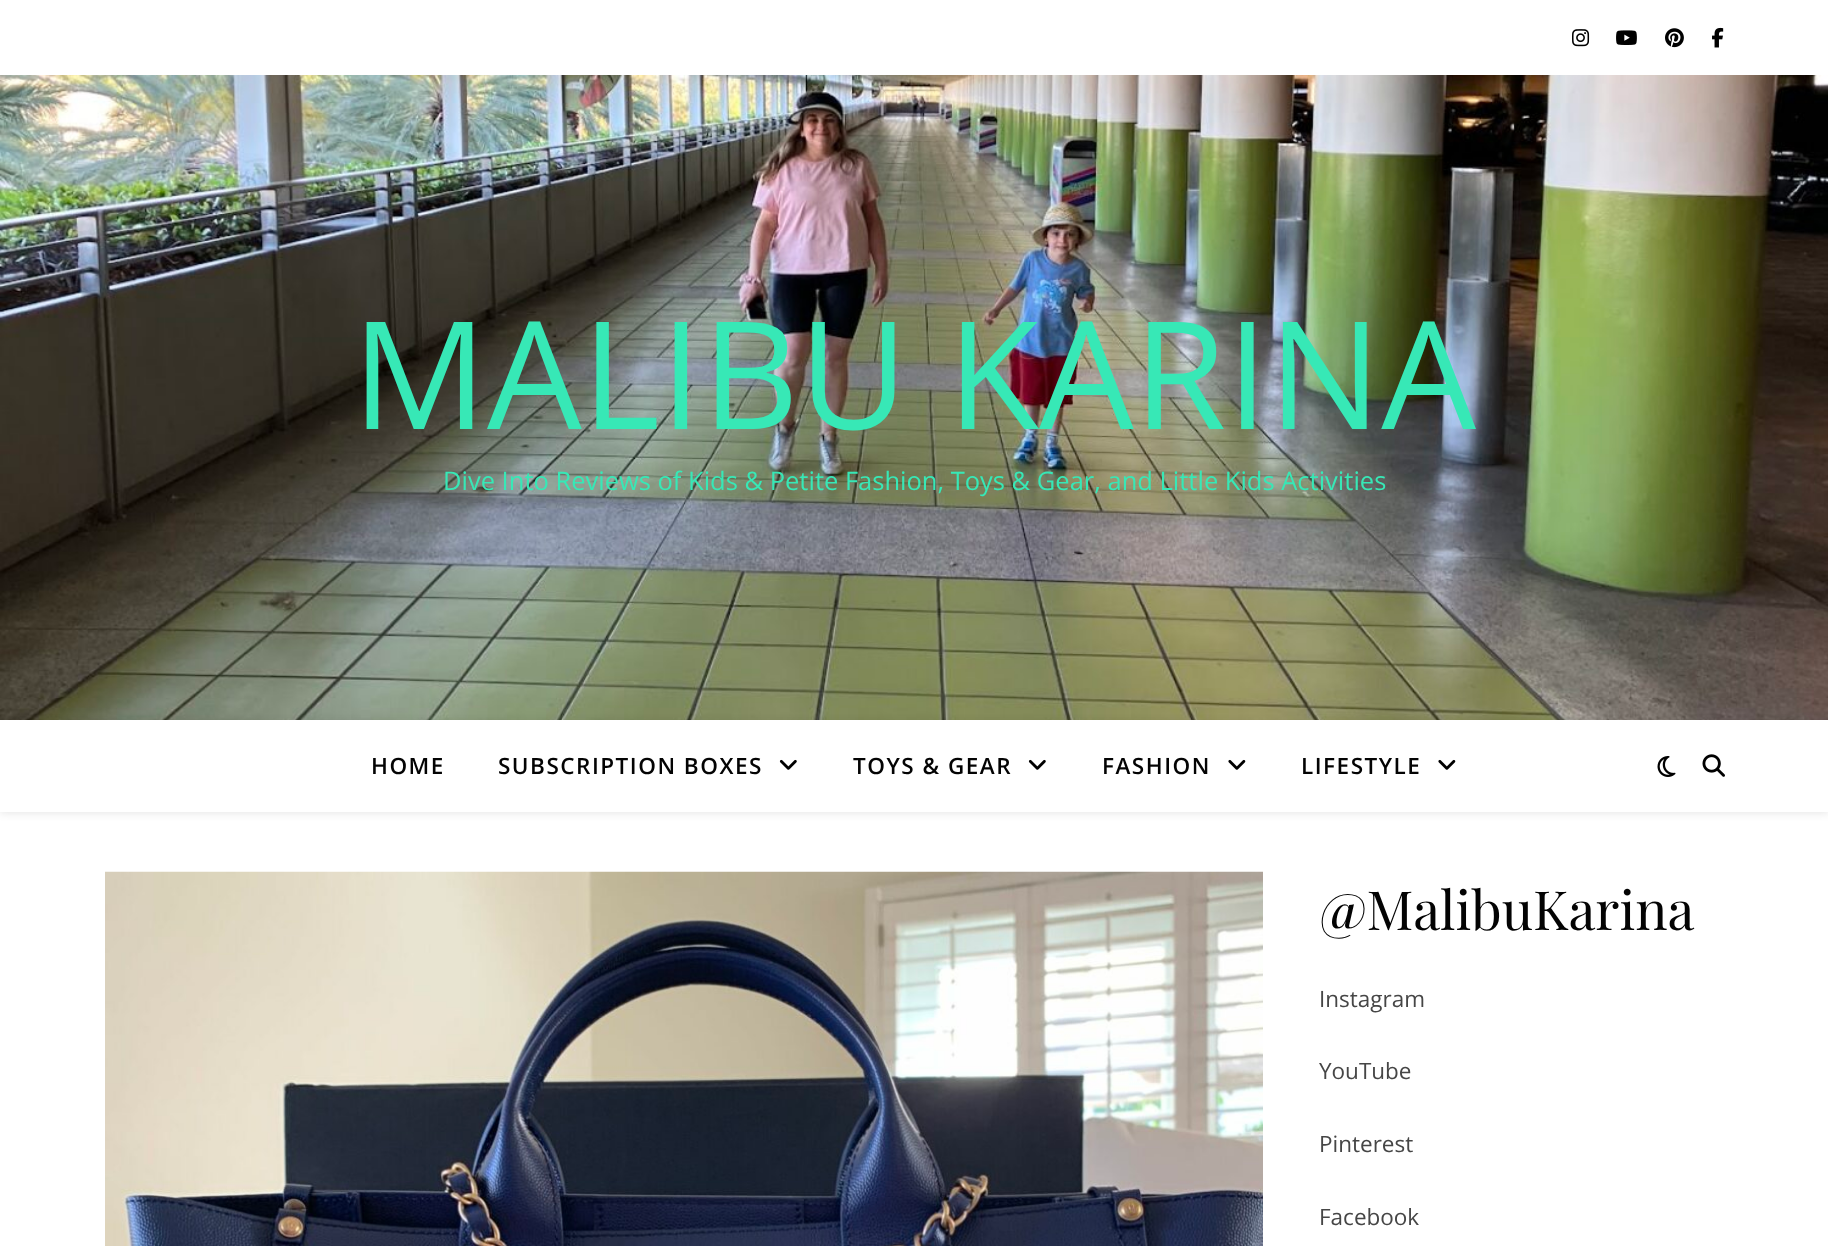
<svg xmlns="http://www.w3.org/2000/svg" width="1828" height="1246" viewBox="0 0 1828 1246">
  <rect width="100%" height="100%" fill="rgb(255,255,255)"/>
  <image x="1572" y="29" width="18" height="18" href="pic1.png"/>
  <image x="1616" y="30" width="21" height="15" href="pic2.png"/>
  <image x="1665" y="28" width="19" height="20" href="pic3.png"/>
  <image x="1712" y="27" width="12" height="21" href="pic4.png"/>
  <image x="0" y="75" width="1828" height="645" href="pic5.png"/>
  <text x="352" y="429" font-family="Open Sans" font-size="150" fill="rgb(55,232,182)">MALIBU KARINA</text>
  <text x="443" y="490" font-family="Open Sans" font-size="25.5" fill="rgb(55,232,182)">Dive Into Reviews of Kids &amp; Petite Fashion, Toys &amp; Gear, and Little Kids Activities</text>
  <rect x="0" y="722" width="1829" height="91" fill="rgba(0,0,0,0.1)" filter="blur(4px)"/>
  <rect x="0" y="720" width="1828" height="92" fill="rgb(255,255,255)"/>
  <g font-family="Open Sans" font-size="22.5" font-weight="600" letter-spacing="1.5" fill="rgb(3,3,3)">
    <text x="371" y="774">HOME</text>
    <text x="498" y="774">SUBSCRIPTION BOXES</text>
  </g>
  <image x="779" y="759" width="18" height="11" href="pic6.png"/>
  <text x="853" y="774" font-family="Open Sans" font-size="22.5" font-weight="600" letter-spacing="1.5" fill="rgb(3,3,3)">TOYS &amp; GEAR</text>
  <image x="1028" y="759" width="18" height="11" href="pic6.png"/>
  <text x="1102" y="774" font-family="Open Sans" font-size="22.5" font-weight="600" letter-spacing="1.5" fill="rgb(3,3,3)">FASHION</text>
  <image x="1228" y="759" width="18" height="11" href="pic7.png"/>
  <text x="1301" y="774" font-family="Open Sans" font-size="22.5" font-weight="600" letter-spacing="1.5" fill="rgb(3,3,3)">LIFESTYLE</text>
  <image x="1438" y="759" width="18" height="11" href="pic7.png"/>
  <image x="1657" y="756" width="19" height="21" href="pic8.png"/>
  <image x="1702" y="754" width="23" height="23" href="pic9.png"/>
  <image x="105" y="871" width="1158" height="375" href="pic10.png"/>
  <text x="1319" y="930" font-family="Playfair Display" font-size="54" fill="rgb(3,3,3)">@MalibuKarina</text>
  <g font-family="Open Sans" font-size="22.5" fill="rgb(70,70,70)">
    <text x="1319" y="1007">Instagram</text>
    <text x="1319" y="1079">YouTube</text>
    <text x="1319" y="1152">Pinterest</text>
    <text x="1319" y="1225">Facebook</text>
  </g>
</svg>
